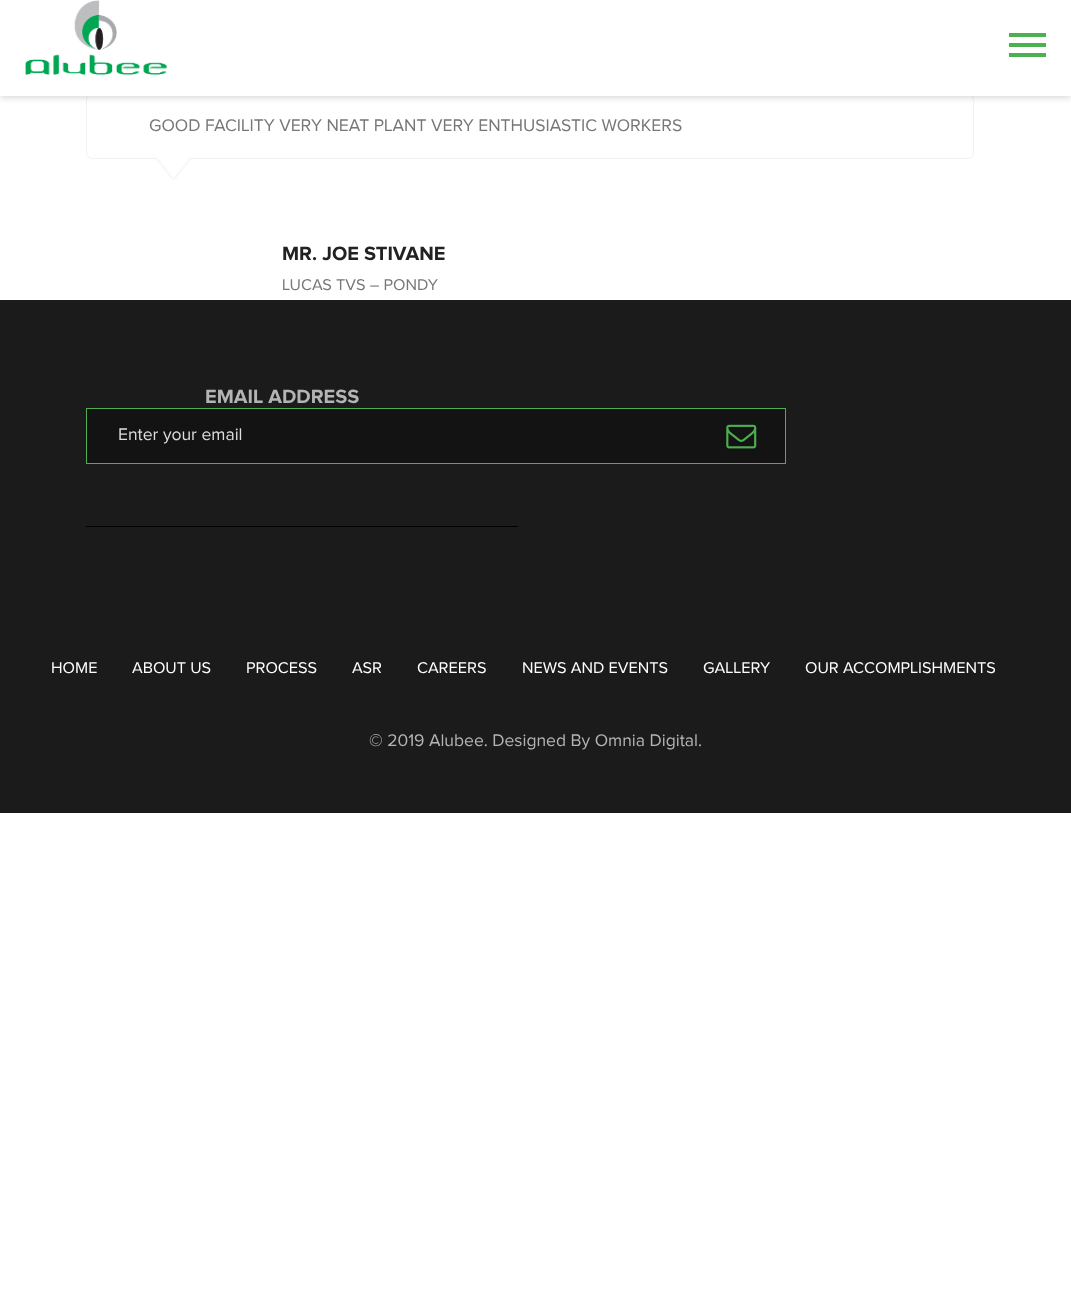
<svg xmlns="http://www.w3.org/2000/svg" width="1071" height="1310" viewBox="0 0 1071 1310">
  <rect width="100%" height="100%" fill="rgb(255,255,255)"/>
  <rect x="86.5" y="94.5" width="887" height="64" rx="5.5" fill="none" stroke="rgb(242,242,242)"/>
  <rect x="0" y="1" width="1071" height="97" fill="rgba(0,0,0,0.15)" filter="blur(3px)"/>
  <rect x="0" y="0" width="1071" height="96" fill="rgb(255,255,255)"/>
  <image x="25" y="0" width="143" height="75" href="pic1.png"/>
  <rect x="1009" y="43" width="37" height="4" fill="rgb(76,175,80)"/>
  <rect x="1009" y="33" width="37" height="4" fill="rgb(76,175,80)"/>
  <rect x="1009" y="53" width="37" height="4" fill="rgb(76,175,80)"/>
  <text x="149" y="131" font-family="Proxima Nova" font-size="17.5" fill="rgb(119,119,119)">GOOD FACILITY VERY NEAT PLANT VERY ENTHUSIASTIC WORKERS</text>
  <image x="156" y="157" width="35" height="23" href="pic2.png"/>
  <text x="282" y="260" font-family="Proxima Nova" font-size="20" font-weight="bold" fill="rgb(34,34,34)">MR. JOE STIVANE</text>
  <text x="282" y="290" font-family="Proxima Nova" font-size="16.25" fill="rgb(119,119,119)">LUCAS TVS – PONDY</text>
  <rect x="0" y="300" width="1071" height="513" fill="rgb(27,27,27)"/>
  <rect x="86" y="526" width="432" height="1" fill="rgb(0,0,0)"/>
  <text x="205" y="403" font-family="Proxima Nova" font-size="20" font-weight="bold" fill="rgb(180,180,180)">EMAIL ADDRESS</text>
  <rect x="86.5" y="408.5" width="699" height="55" fill="rgb(19,19,19)" stroke="rgb(76,175,80)"/>
  <text x="118" y="440" font-family="Proxima Nova" font-size="17.5" fill="rgb(221,221,221)">Enter your email</text>
  <image x="726" y="424" width="31" height="25" href="pic3.png"/>
  <g font-family="Proxima Nova" font-size="16.25" fill="rgb(255,255,255)">
    <text x="51" y="673">HOME</text>
    <text x="132" y="673">ABOUT US</text>
    <text x="246" y="673">PROCESS</text>
    <text x="352" y="673">ASR</text>
    <text x="417" y="673">CAREERS</text>
    <text x="522" y="673">NEWS AND EVENTS</text>
    <text x="703" y="673">GALLERY</text>
    <text x="805" y="673">OUR ACCOMPLISHMENTS</text>
  </g>
  <text x="369" y="746" font-family="Proxima Nova" font-size="17.5" fill="rgb(180,180,180)">© 2019 Alubee. Designed By Omnia Digital.</text>
</svg>
